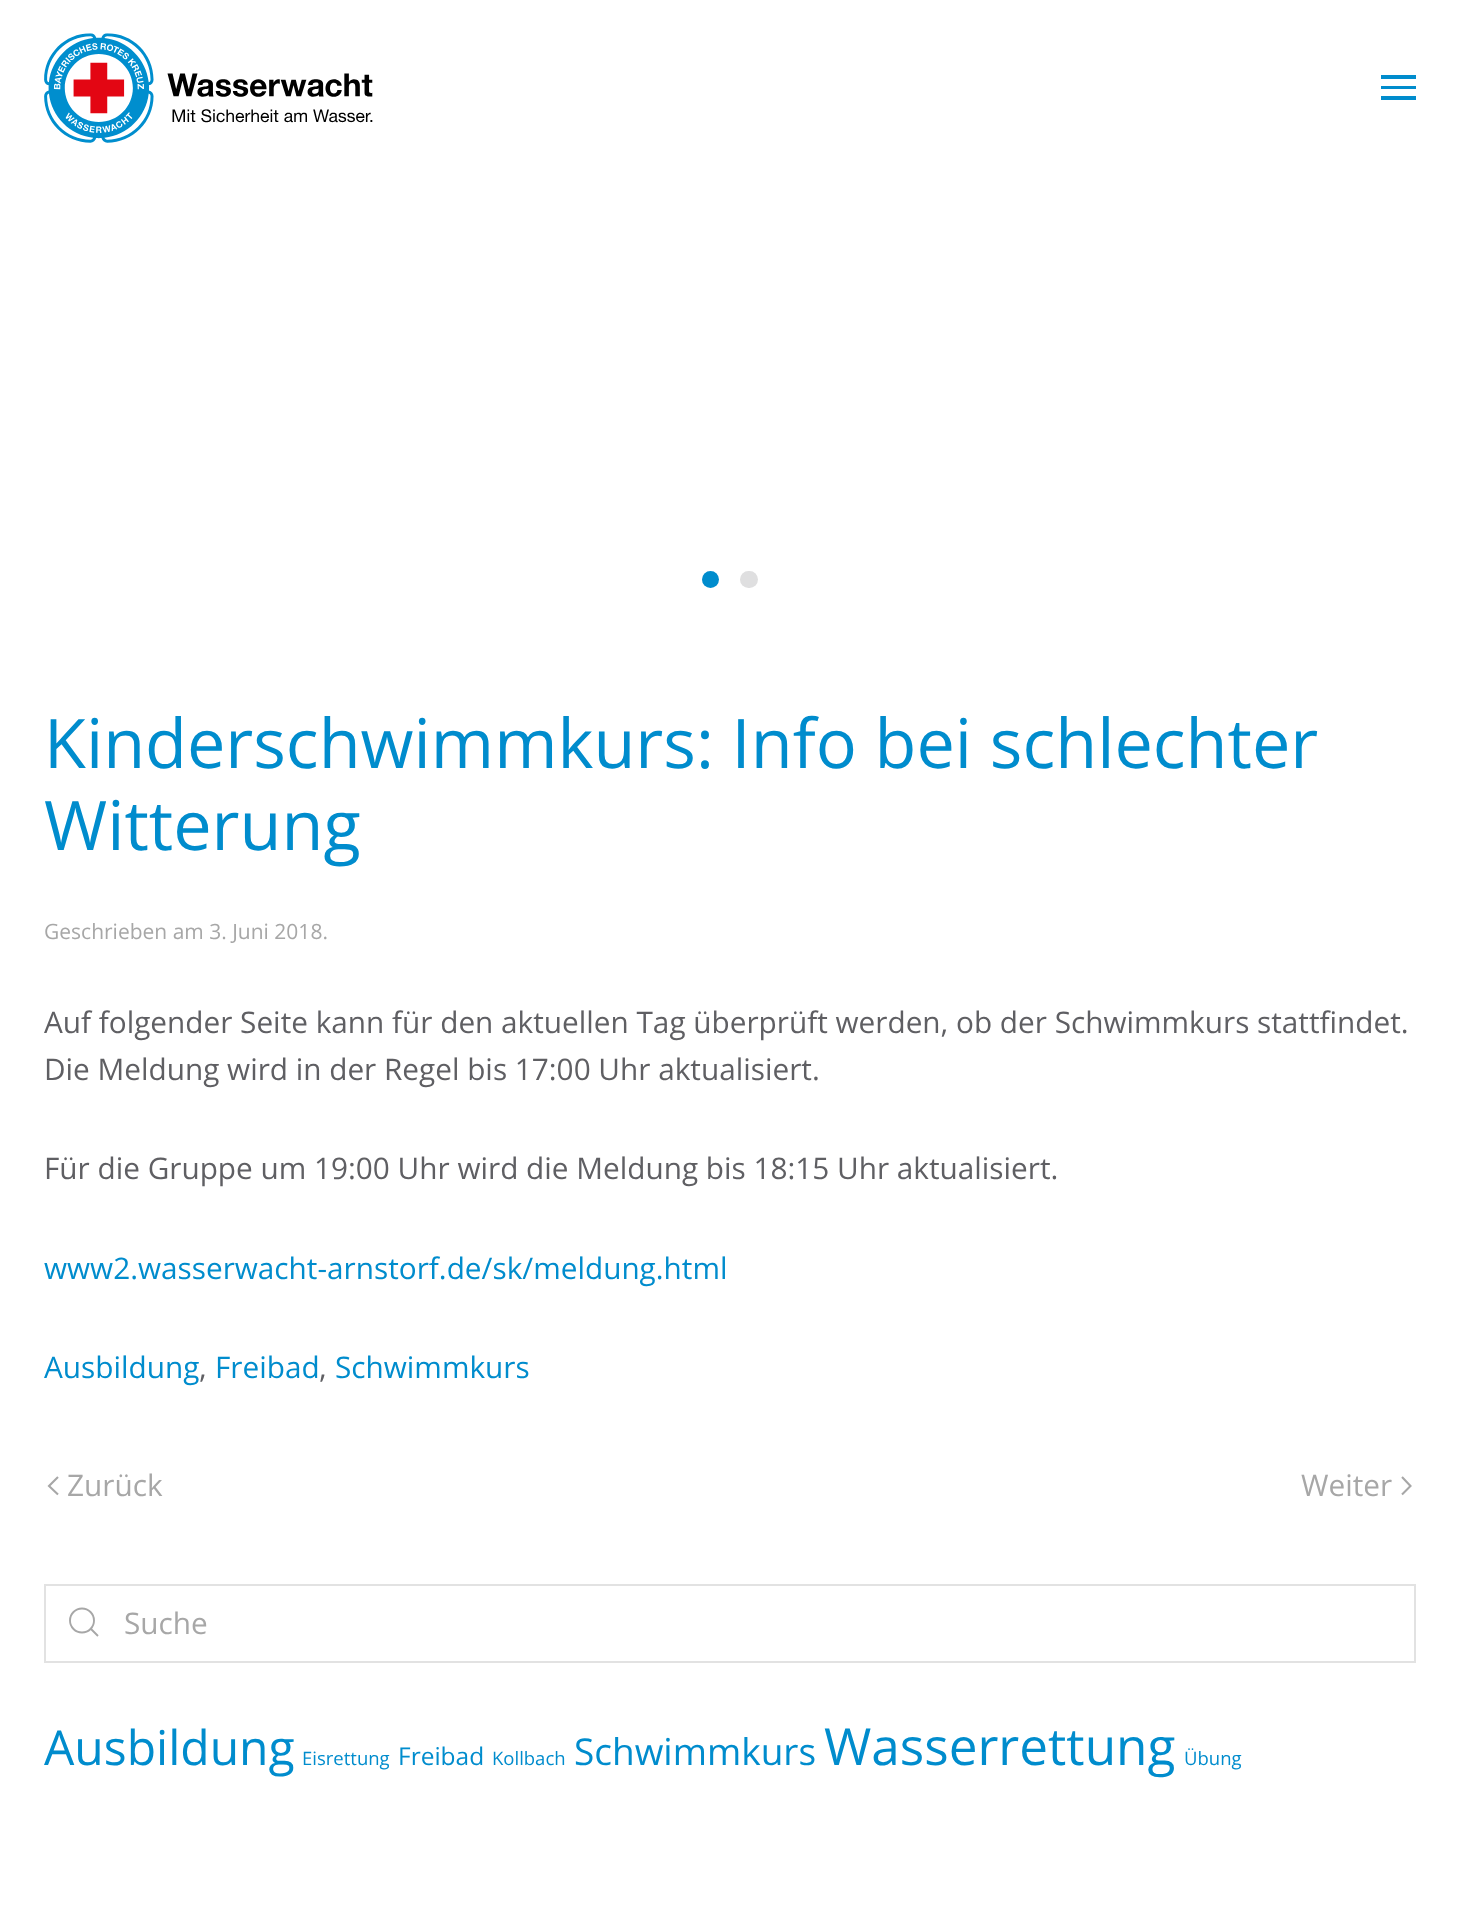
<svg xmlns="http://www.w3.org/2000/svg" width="1459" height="1910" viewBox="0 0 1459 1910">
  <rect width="100%" height="100%" fill="rgb(255,255,255)"/>
  <image x="44" y="33" width="329" height="110" href="pic1.png"/>
  <rect x="1381" y="75" width="35" height="4" fill="rgb(0,140,205)"/>
  <rect x="1381" y="86" width="35" height="3" fill="rgb(0,140,205)"/>
  <rect x="1381" y="96" width="35" height="4" fill="rgb(0,140,205)"/>
  <circle cx="710.5" cy="579.5" r="8.5" fill="rgb(0,140,205)"/>
  <rect x="740" y="571" width="18" height="17" rx="8.5" fill="rgb(223,223,224)"/>
  <g font-family="Open Sans" font-size="68.4" fill="rgb(0,140,205)">
    <text>
      <tspan x="44" y="768">Kinderschwimmkurs: Info bei schlechter</tspan>
      <tspan x="44" y="850">Witterung</tspan>
    </text>
  </g>
  <text x="44" y="939" font-family="Open Sans" font-size="21" fill="rgb(167,167,167)">Geschrieben am 3. Juni 2018.</text>
  <g font-family="Open Sans" font-size="29.75" fill="rgb(95,95,99)">
    <text>
      <tspan x="44" y="1033">Auf folgender Seite kann für den aktuellen Tag überprüft werden, ob der Schwimmkurs stattfindet.</tspan>
      <tspan x="44" y="1080">Die Meldung wird in der Regel bis 17:00 Uhr aktualisiert.</tspan>
    </text>
    <text x="44" y="1179">Für die Gruppe um 19:00 Uhr wird die Meldung bis 18:15 Uhr aktualisiert.</text>
  </g>
  <g font-family="Open Sans" font-size="29.75" fill="rgb(0,140,205)">
    <text x="44" y="1279">www2.wasserwacht-arnstorf.de/sk/meldung.html</text>
    <text x="44" y="1378">Ausbildung</text>
  </g>
  <text x="199" y="1378" font-family="Open Sans" font-size="29.75" fill="rgb(95,95,99)">,</text>
  <text x="215" y="1378" font-family="Open Sans" font-size="29.75" fill="rgb(0,140,205)">Freibad</text>
  <text x="319" y="1378" font-family="Open Sans" font-size="29.75" fill="rgb(95,95,99)">,</text>
  <text x="335" y="1378" font-family="Open Sans" font-size="29.75" fill="rgb(0,140,205)">Schwimmkurs</text>
  <path d="M58 1477L49 1486L58 1494.5" fill="none" stroke="rgb(167,167,167)" stroke-width="2.1"/>
  <g font-family="Open Sans" font-size="29.75" fill="rgb(167,167,167)">
    <text x="67" y="1496">Zurück</text>
    <text x="1301" y="1496">Weiter</text>
  </g>
  <path d="M1402 1477L1410.5 1486L1402 1494.5" fill="none" stroke="rgb(167,167,167)" stroke-width="2.1"/>
  <rect x="45" y="1585" width="1370" height="77" fill="none" stroke="rgb(226,226,226)" stroke-width="2"/>
  <circle cx="82" cy="1620.5" r="12" fill="none" stroke="rgb(167,167,167)" stroke-width="1.9"/>
  <path d="M91 1629L98 1636Z" fill="none" stroke="rgb(167,167,167)" stroke-width="1.9"/>
  <text x="124" y="1634" font-family="Open Sans" font-size="29.75" fill="rgb(167,167,167)">Suche</text>
  <text x="44" y="1765" font-family="Open Sans" font-size="48" fill="rgb(0,140,205)">Ausbildung</text>
  <text x="302" y="1765" font-family="Open Sans" font-size="18.5" fill="rgb(0,140,205)">Eisrettung</text>
  <text x="398" y="1765" font-family="Open Sans" font-size="24.5" fill="rgb(0,140,205)">Freibad</text>
  <text x="492" y="1765" font-family="Open Sans" font-size="18.5" fill="rgb(0,140,205)">Kollbach</text>
  <text x="574" y="1765" font-family="Open Sans" font-size="37" fill="rgb(0,140,205)">Schwimmkurs</text>
  <text x="824" y="1765" font-family="Open Sans" font-size="51.25" fill="rgb(0,140,205)">Wasserrettung</text>
  <text x="1184" y="1765" font-family="Open Sans" font-size="18.5" fill="rgb(0,140,205)">Übung</text>
</svg>
